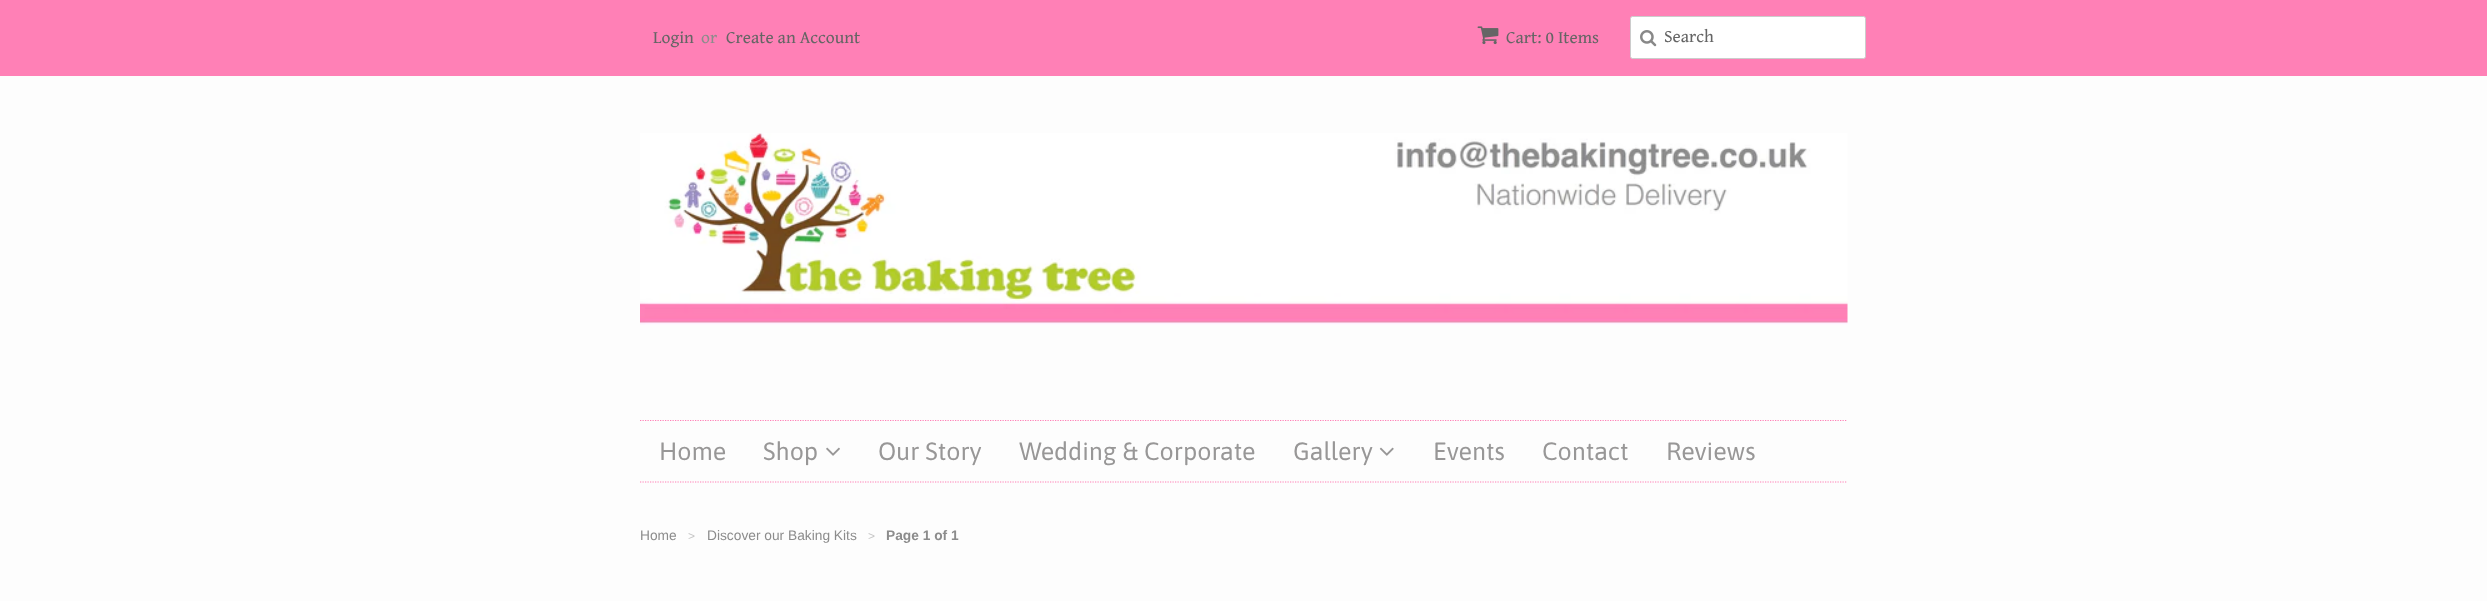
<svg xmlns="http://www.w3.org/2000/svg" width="2487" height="601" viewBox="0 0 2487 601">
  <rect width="100%" height="100%" fill="rgb(253,253,253)"/>
  <rect x="0" y="0" width="2487" height="76" fill="rgb(255,128,182)"/>
  <path d="M0 75.5H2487.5" fill="none" stroke="rgb(255,128,182)" stroke-width="1.2" stroke-dasharray="1.25 1.25"/>
  <text x="653" y="43" font-family="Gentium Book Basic" font-size="17.5" fill="rgb(101,101,101)">Login</text>
  <text x="701" y="43" font-family="Gentium Book Basic" font-size="17.5" fill="rgb(140,140,140)">or</text>
  <text x="726" y="43" font-family="Gentium Book Basic" font-size="17.5" fill="rgb(101,101,101)">Create an Account</text>
  <image x="1477" y="26" width="22" height="19" href="pic1.png"/>
  <text x="1506" y="43" font-family="Gentium Book Basic" font-size="17.5" fill="rgb(101,101,101)">Cart: 0 Items</text>
  <rect x="1630.5" y="16.5" width="235" height="42" rx="2" fill="rgb(255,255,255)" stroke="rgb(204,204,204)"/>
  <image x="1640" y="30" width="17" height="17" href="pic2.png"/>
  <text x="1664" y="42" font-family="Gentium Book Basic" font-size="17.5" fill="rgb(101,101,101)">Search</text>
  <rect x="603" y="76" width="1281" height="1" fill="rgb(253,253,253)"/>
  <image x="640" y="133" width="1208" height="192" href="pic3.png"/>
  <path d="M640 420.5H1847.5" fill="none" stroke="rgb(255,128,182)" stroke-width="1.2" stroke-dasharray="1.25 1.25"/>
  <path d="M640 482H1847.5" fill="none" stroke="rgb(255,128,182)" stroke-width="1.2" stroke-dasharray="1.25 1.25"/>
  <g font-family="Asap" font-size="25" fill="rgb(152,151,151)">
    <text x="659" y="460">Home</text>
    <text x="763" y="460">Shop</text>
  </g>
  <image x="826" y="447" width="14" height="9" href="pic4.png"/>
  <g font-family="Asap" font-size="25" fill="rgb(152,151,151)">
    <text x="878" y="460">Our Story</text>
    <text x="1019" y="460">Wedding &amp; Corporate</text>
    <text x="1293" y="460">Gallery</text>
  </g>
  <image x="1379" y="447" width="15" height="9" href="pic5.png"/>
  <g font-family="Asap" font-size="25" fill="rgb(152,151,151)">
    <text x="1433" y="460">Events</text>
    <text x="1542" y="460">Contact</text>
    <text x="1666" y="460">Reviews</text>
  </g>
  <text x="640" y="540" font-family="Liberation Sans" font-size="13.75" fill="rgb(140,140,140)">Home</text>
  <text x="688" y="540" font-family="Liberation Sans" font-size="12" fill="rgb(197,197,197)">&gt;</text>
  <text x="707" y="540" font-family="Liberation Sans" font-size="13.75" fill="rgb(140,140,140)">Discover our Baking Kits</text>
  <text x="868" y="540" font-family="Liberation Sans" font-size="12" fill="rgb(197,197,197)">&gt;</text>
  <text x="886" y="540" font-family="Liberation Sans" font-size="13.75" font-weight="bold" fill="rgb(140,140,140)">Page 1 of 1</text>
</svg>
